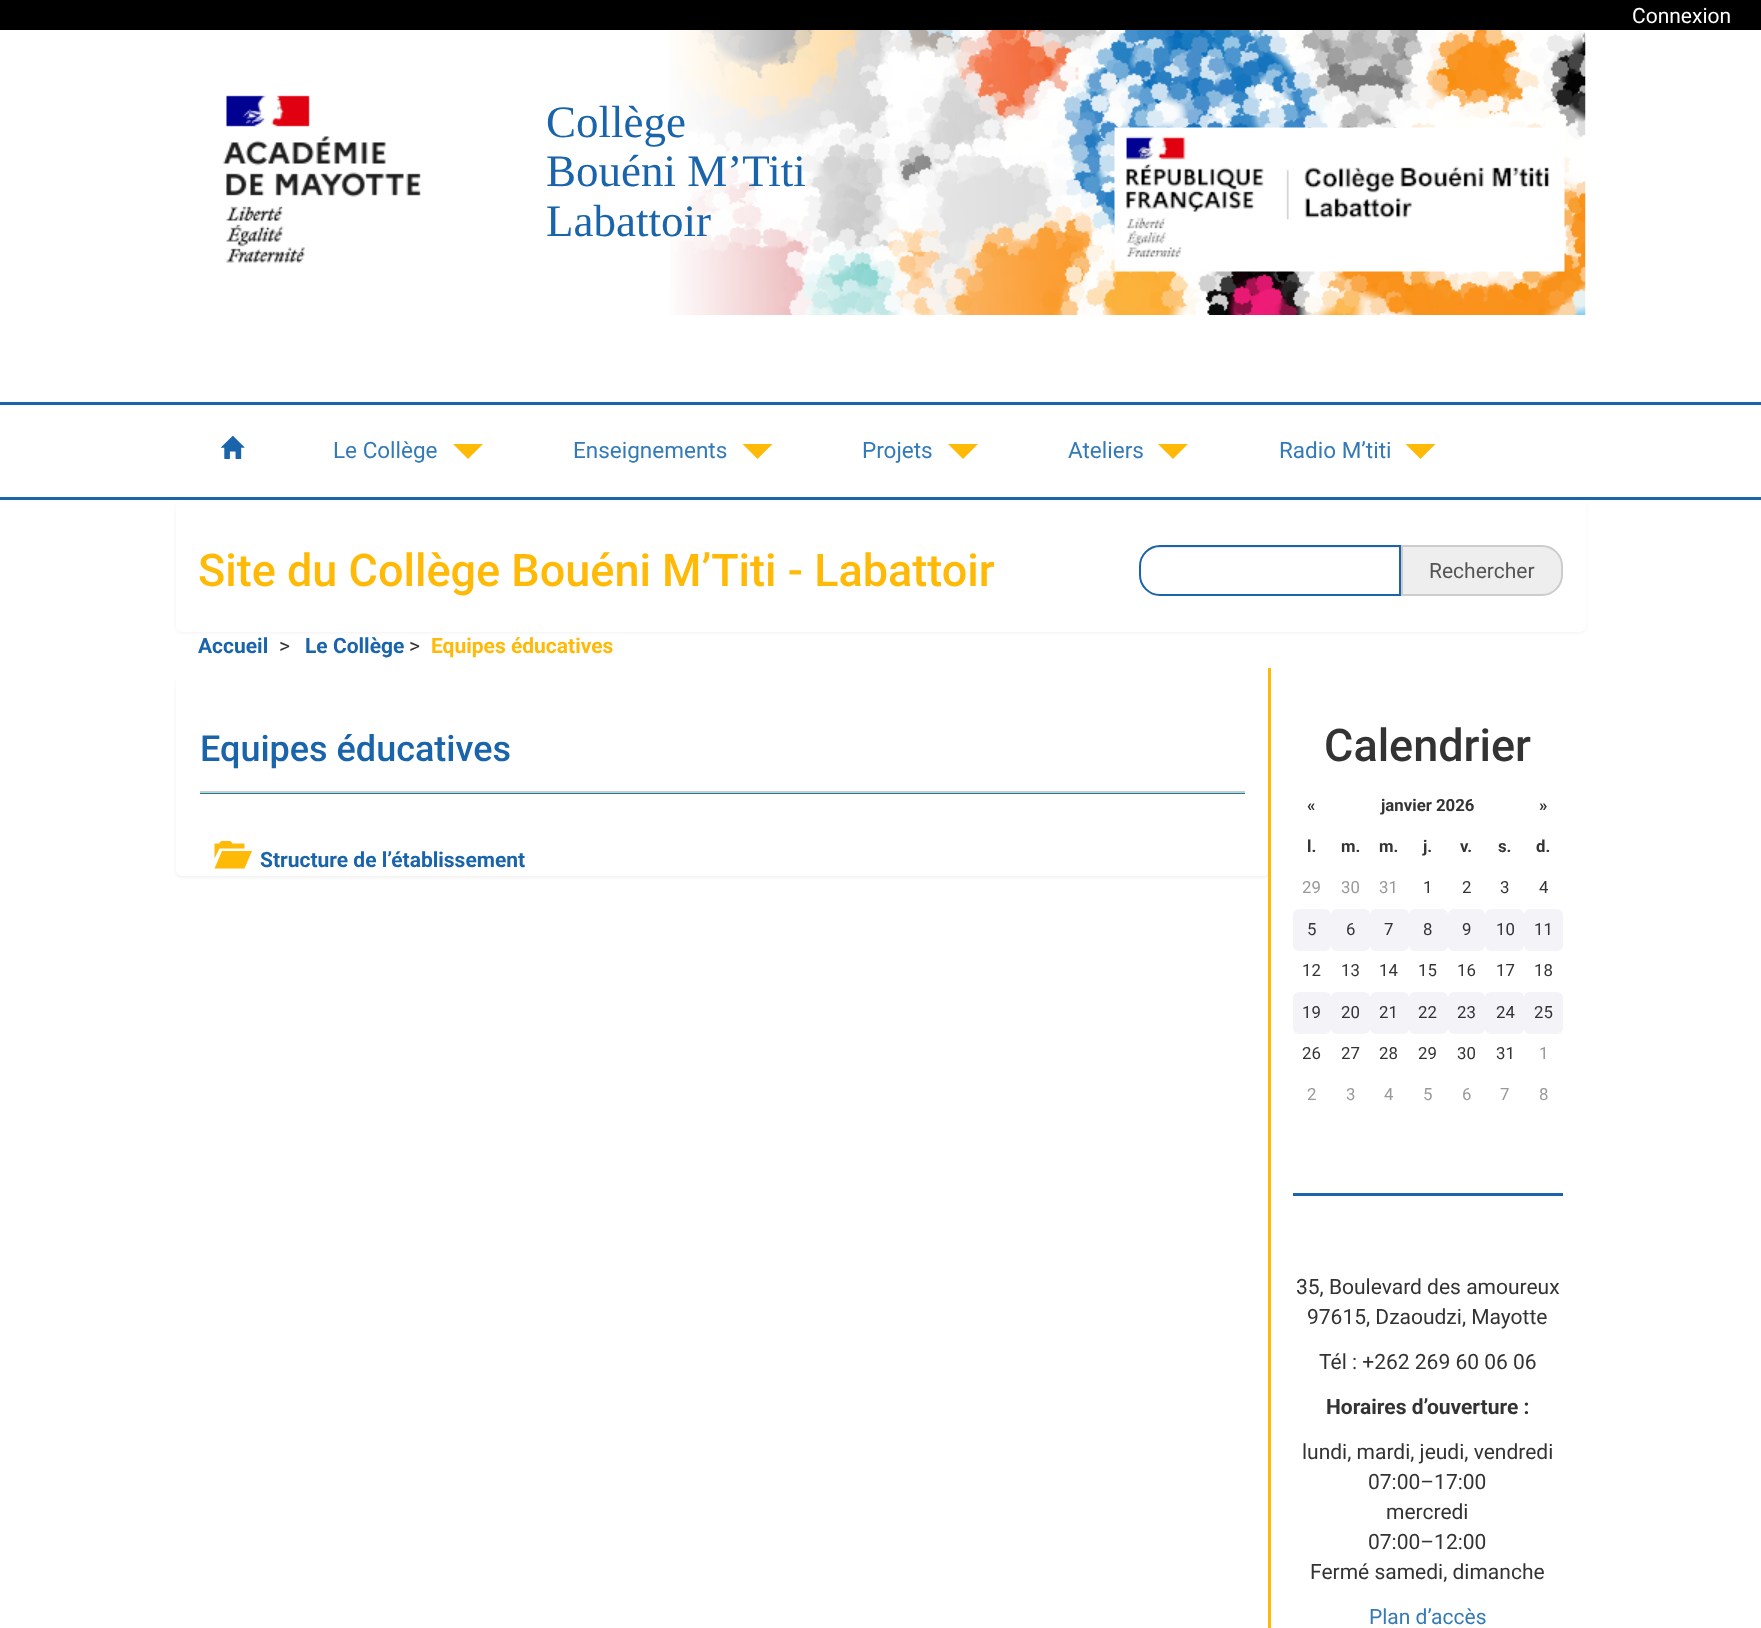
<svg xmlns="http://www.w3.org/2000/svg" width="1761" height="1628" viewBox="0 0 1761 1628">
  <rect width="100%" height="100%" fill="rgb(255,255,255)"/>
  <rect x="0" y="0" width="1761" height="30" fill="rgb(0,0,0)"/>
  <text x="1632" y="23" font-family="Roboto" font-size="21" fill="rgb(255,255,255)">Connexion</text>
  <image x="670" y="30" width="916" height="285" href="pic1.png"/>
  <image x="223" y="95" width="198" height="168" href="pic2.png"/>
  <g font-family="Liberation Serif" font-size="45" fill="rgb(25,100,170)">
    <text>
      <tspan x="546" y="137">Collège</tspan>
      <tspan x="546" y="186">Bouéni M’Titi</tspan>
      <tspan x="546" y="236">Labattoir</tspan>
    </text>
  </g>
  <image x="1114" y="127" width="451" height="145" href="pic3.png"/>
  <rect x="0" y="402" width="1761" height="3" fill="rgb(25,100,170)"/>
  <rect x="176" y="501" width="1410" height="132" rx="6" fill="rgba(0,0,0,0.05)" filter="blur(1.5px)"/>
  <rect x="0" y="497" width="1761" height="3" fill="rgb(25,100,170)"/>
  <image x="220" y="435" width="25" height="24" href="pic4.png"/>
  <text x="333" y="458" font-family="Roboto" font-size="22.5" fill="rgb(51,122,183)">Le Collège</text>
  <path d="M453 444H483L468 459Z" fill="rgb(255,186,8)"/>
  <text x="573" y="458" font-family="Roboto" font-size="22.5" fill="rgb(51,122,183)">Enseignements</text>
  <path d="M742.5 444H772.5L757.5 459Z" fill="rgb(255,186,8)"/>
  <text x="862" y="458" font-family="Roboto" font-size="22.5" fill="rgb(51,122,183)">Projets</text>
  <path d="M948 444H978L963 459Z" fill="rgb(255,186,8)"/>
  <text x="1068" y="458" font-family="Roboto" font-size="22.5" fill="rgb(51,122,183)">Ateliers</text>
  <path d="M1158 444H1188L1173 459Z" fill="rgb(255,186,8)"/>
  <text x="1279" y="458" font-family="Roboto" font-size="22.5" fill="rgb(51,122,183)">Radio M’titi</text>
  <path d="M1405.5 444H1435.5L1420.5 459Z" fill="rgb(255,186,8)"/>
  <rect x="176" y="500" width="1410" height="132" rx="6" fill="rgb(255,255,255)"/>
  <text x="198" y="586" font-family="Roboto" font-size="45" font-weight="500" fill="rgb(255,186,8)">Site du Collège Bouéni M’Titi - Labattoir</text>
  <path d="M1160 548H1400V546H1160C1149 546 1140 555 1140 566V567C1140 556 1149 548 1160 548Z" fill="rgb(236,236,236)"/>
  <path d="M1160 546H1400V595H1160C1149 595 1140 586 1140 575V566C1140 555 1149 546 1160 546Z" fill="none" stroke="rgb(25,100,170)" stroke-width="2"/>
  <path d="M1402 546H1542C1553 546 1562 555 1562 566V575C1562 586 1553 595 1542 595H1402Z" fill="rgb(238,238,238)" stroke="rgb(204,204,204)" stroke-width="2"/>
  <text x="1429" y="578" font-family="Roboto" font-size="21" fill="rgb(85,85,85)">Rechercher</text>
  <text x="198" y="653" font-family="Roboto" font-size="21" font-weight="bold" fill="rgb(25,100,170)">Accueil</text>
  <text x="279" y="653" font-family="Roboto" font-size="21" fill="rgb(51,51,51)">&gt;</text>
  <text x="305" y="653" font-family="Roboto" font-size="21" font-weight="bold" fill="rgb(25,100,170)">Le Collège</text>
  <text x="409" y="653" font-family="Roboto" font-size="21" fill="rgb(51,51,51)">&gt;</text>
  <text x="431" y="653" font-family="Roboto" font-size="21" font-weight="bold" fill="rgb(255,186,8)">Equipes éducatives</text>
  <rect x="176" y="677" width="1093" height="201" rx="6" fill="rgba(0,0,0,0.05)" filter="blur(1.5px)"/>
  <rect x="176" y="675" width="1093" height="201" rx="6" fill="rgb(255,255,255)"/>
  <text x="200" y="761" font-family="Roboto" font-size="36" font-weight="500" fill="rgb(25,100,170)">Equipes éducatives</text>
  <rect x="200" y="793" width="1045" height="1" fill="rgb(20,130,151)"/>
  <rect x="200" y="791" width="1045" height="2" fill="rgb(204,204,204)"/>
  <image x="214" y="841" width="38" height="28" href="pic5.png"/>
  <text x="260" y="867" font-family="Roboto" font-size="21" font-weight="bold" fill="rgb(25,100,170)">Structure de l’établissement</text>
  <rect x="1268" y="668" width="3" height="960" fill="rgb(255,186,8)"/>
  <rect x="1293" y="1193" width="270" height="3" fill="rgb(25,100,170)"/>
  <text x="1324" y="761" font-family="Roboto" font-size="45" font-weight="500" fill="rgb(51,51,51)">Calendrier</text>
  <g font-family="Roboto" font-size="16.75" font-weight="bold" fill="rgb(51,51,51)">
    <text x="1307" y="811">«</text>
    <text x="1381" y="811">janvier 2026</text>
    <text x="1539" y="811">»</text>
    <text x="1307" y="852">l.</text>
    <text x="1341" y="852">m.</text>
    <text x="1379" y="852">m.</text>
    <text x="1423" y="852">j.</text>
    <text x="1460" y="852">v.</text>
    <text x="1498" y="852">s.</text>
    <text x="1536" y="852">d.</text>
  </g>
  <g font-family="Roboto" font-size="16.75" fill="rgb(153,153,153)">
    <text x="1302" y="893">29</text>
    <text x="1341" y="893">30</text>
    <text x="1379" y="893">31</text>
  </g>
  <g font-family="Roboto" font-size="16.75" fill="rgb(51,51,51)">
    <text x="1423" y="893">1</text>
    <text x="1462" y="893">2</text>
    <text x="1500" y="893">3</text>
    <text x="1539" y="893">4</text>
  </g>
  <rect x="1293" y="909" width="38" height="42" rx="6" fill="rgb(243,243,248)"/>
  <text x="1307" y="935" font-family="Roboto" font-size="16.75" fill="rgb(51,51,51)">5</text>
  <rect x="1331" y="909" width="39" height="42" rx="6" fill="rgb(243,243,248)"/>
  <text x="1346" y="935" font-family="Roboto" font-size="16.75" fill="rgb(51,51,51)">6</text>
  <rect x="1370" y="909" width="39" height="42" rx="6" fill="rgb(243,243,248)"/>
  <text x="1384" y="935" font-family="Roboto" font-size="16.75" fill="rgb(51,51,51)">7</text>
  <rect x="1409" y="909" width="39" height="42" rx="6" fill="rgb(243,243,248)"/>
  <text x="1423" y="935" font-family="Roboto" font-size="16.75" fill="rgb(51,51,51)">8</text>
  <rect x="1448" y="909" width="37" height="42" rx="6" fill="rgb(243,243,248)"/>
  <text x="1462" y="935" font-family="Roboto" font-size="16.75" fill="rgb(51,51,51)">9</text>
  <rect x="1485" y="909" width="39" height="42" rx="6" fill="rgb(243,243,248)"/>
  <text x="1496" y="935" font-family="Roboto" font-size="16.75" fill="rgb(51,51,51)">10</text>
  <rect x="1524" y="909" width="39" height="42" rx="6" fill="rgb(243,243,248)"/>
  <g font-family="Roboto" font-size="16.75" fill="rgb(51,51,51)">
    <text x="1534" y="935">11</text>
    <text x="1302" y="976">12</text>
    <text x="1341" y="976">13</text>
    <text x="1379" y="976">14</text>
    <text x="1418" y="976">15</text>
    <text x="1457" y="976">16</text>
    <text x="1496" y="976">17</text>
    <text x="1534" y="976">18</text>
  </g>
  <rect x="1293" y="992" width="38" height="42" rx="6" fill="rgb(243,243,248)"/>
  <text x="1302" y="1018" font-family="Roboto" font-size="16.75" fill="rgb(51,51,51)">19</text>
  <rect x="1331" y="992" width="39" height="42" rx="6" fill="rgb(243,243,248)"/>
  <text x="1341" y="1018" font-family="Roboto" font-size="16.75" fill="rgb(51,51,51)">20</text>
  <rect x="1370" y="992" width="39" height="42" rx="6" fill="rgb(243,243,248)"/>
  <text x="1379" y="1018" font-family="Roboto" font-size="16.75" fill="rgb(51,51,51)">21</text>
  <rect x="1409" y="992" width="39" height="42" rx="6" fill="rgb(243,243,248)"/>
  <text x="1418" y="1018" font-family="Roboto" font-size="16.75" fill="rgb(51,51,51)">22</text>
  <rect x="1448" y="992" width="37" height="42" rx="6" fill="rgb(243,243,248)"/>
  <text x="1457" y="1018" font-family="Roboto" font-size="16.75" fill="rgb(51,51,51)">23</text>
  <rect x="1485" y="992" width="39" height="42" rx="6" fill="rgb(243,243,248)"/>
  <text x="1496" y="1018" font-family="Roboto" font-size="16.75" fill="rgb(51,51,51)">24</text>
  <rect x="1524" y="992" width="39" height="42" rx="6" fill="rgb(243,243,248)"/>
  <g font-family="Roboto" font-size="16.75" fill="rgb(51,51,51)">
    <text x="1534" y="1018">25</text>
    <text x="1302" y="1059">26</text>
    <text x="1341" y="1059">27</text>
    <text x="1379" y="1059">28</text>
    <text x="1418" y="1059">29</text>
    <text x="1457" y="1059">30</text>
    <text x="1496" y="1059">31</text>
  </g>
  <g font-family="Roboto" font-size="16.75" fill="rgb(153,153,153)">
    <text x="1539" y="1059">1</text>
    <text x="1307" y="1100">2</text>
    <text x="1346" y="1100">3</text>
    <text x="1384" y="1100">4</text>
    <text x="1423" y="1100">5</text>
    <text x="1462" y="1100">6</text>
    <text x="1500" y="1100">7</text>
    <text x="1539" y="1100">8</text>
  </g>
  <g font-family="Roboto" font-size="21" fill="rgb(51,51,51)">
    <text x="1296" y="1294">35, Boulevard des amoureux</text>
    <text x="1307" y="1324">97615, Dzaoudzi, Mayotte</text>
    <text x="1319" y="1369">Tél : +262 269 60 06 06</text>
  </g>
  <text x="1326" y="1414" font-family="Roboto" font-size="21" font-weight="bold" fill="rgb(51,51,51)">Horaires d’ouverture :</text>
  <g font-family="Roboto" font-size="21" fill="rgb(51,51,51)">
    <text x="1302" y="1459">lundi, mardi, jeudi, vendredi</text>
    <text x="1368" y="1489">07:00–17:00</text>
    <text x="1386" y="1519">mercredi</text>
    <text x="1368" y="1549">07:00–12:00</text>
    <text x="1310" y="1579">Fermé samedi, dimanche</text>
  </g>
  <text x="1369" y="1624" font-family="Roboto" font-size="21" fill="rgb(51,122,183)">Plan d’accès</text>
</svg>
